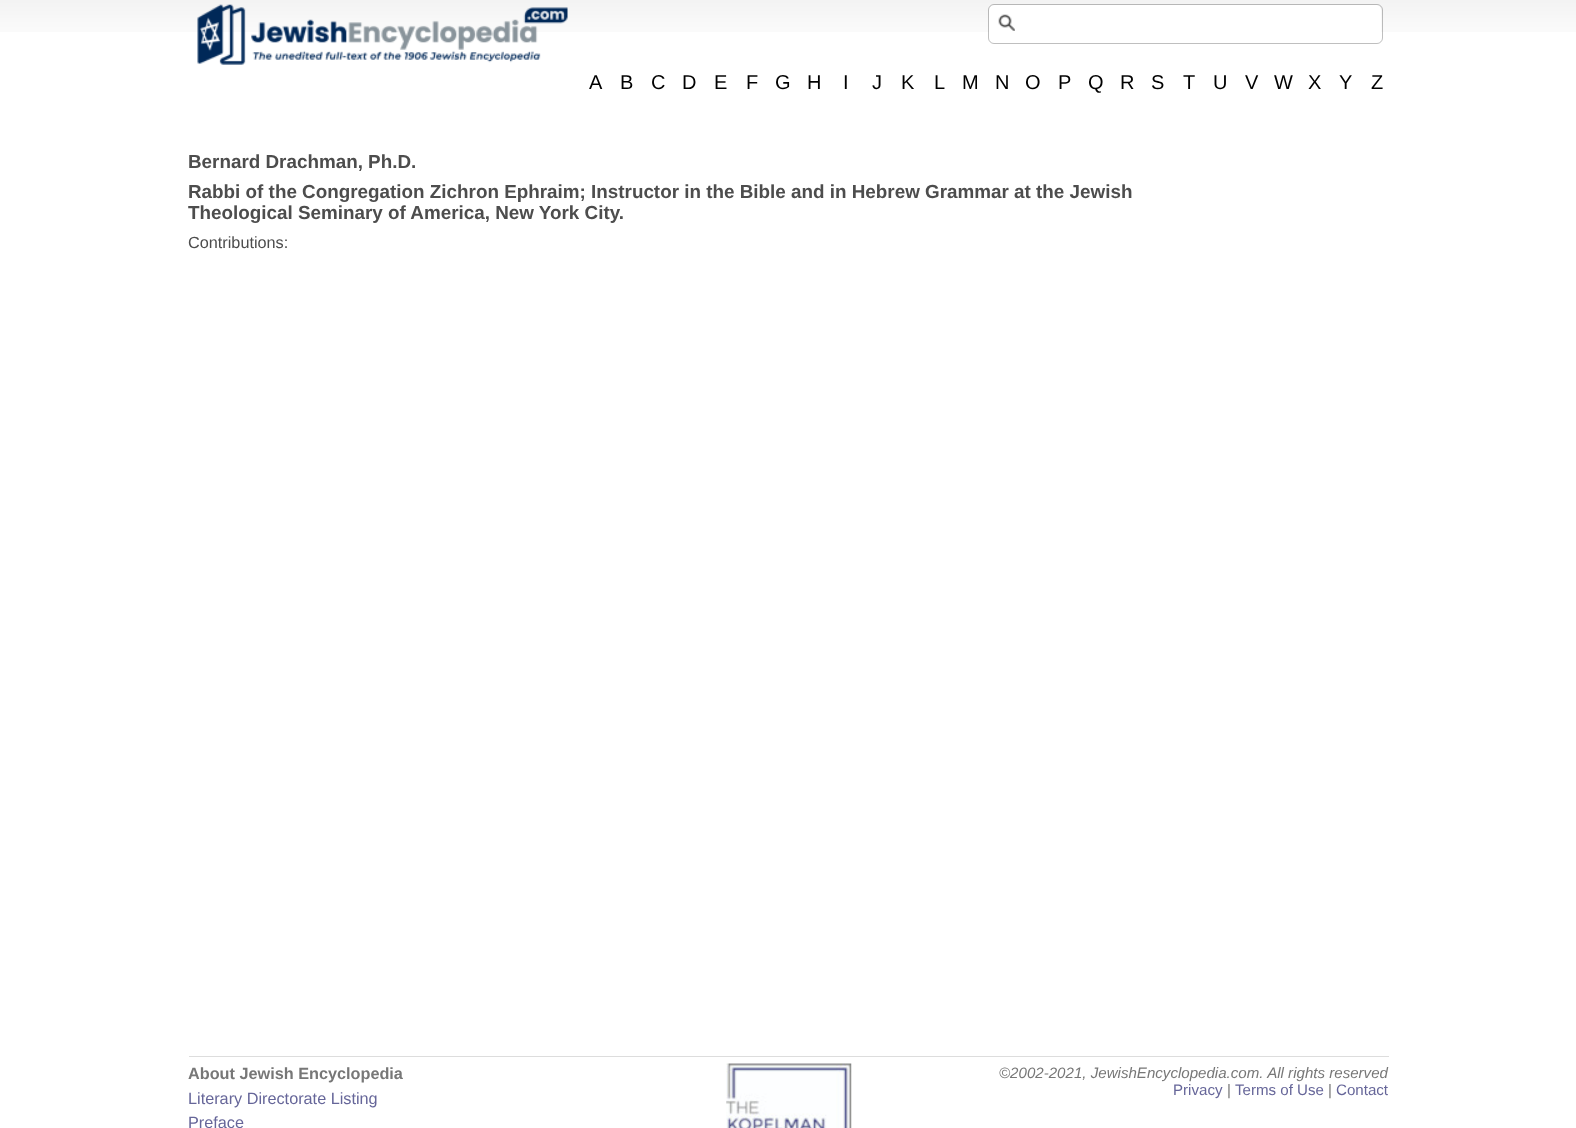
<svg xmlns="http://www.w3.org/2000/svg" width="1576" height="1128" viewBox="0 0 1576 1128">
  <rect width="100%" height="100%" fill="rgb(255,255,255)"/>
  <image x="0" y="0" width="1576" height="32" href="pic1.png"/>
  <image x="197" y="4" width="371" height="61" href="pic2.png"/>
  <rect x="989" y="5" width="392" height="38" rx="5" fill="rgb(255,255,255)"/>
  <image x="998" y="14" width="17" height="17" href="pic3.png"/>
  <rect x="988.5" y="4.5" width="394" height="39" rx="5.5" fill="none" stroke="rgba(0,0,0,0.25)"/>
  <g font-family="Liberation Sans" font-size="20" fill="rgb(1,1,1)">
    <text x="589" y="89">A</text>
    <text x="620" y="89">B</text>
    <text x="651" y="89">C</text>
    <text x="682" y="89">D</text>
    <text x="714" y="89">E</text>
    <text x="746" y="89">F</text>
    <text x="775" y="89">G</text>
    <text x="807" y="89">H</text>
    <text x="843" y="89">I</text>
    <text x="872" y="89">J</text>
    <text x="901" y="89">K</text>
    <text x="934" y="89">L</text>
    <text x="962" y="89">M</text>
    <text x="995" y="89">N</text>
    <text x="1025" y="89">O</text>
    <text x="1058" y="89">P</text>
    <text x="1088" y="89">Q</text>
    <text x="1120" y="89">R</text>
    <text x="1151" y="89">S</text>
    <text x="1183" y="89">T</text>
    <text x="1213" y="89">U</text>
    <text x="1245" y="89">V</text>
    <text x="1274" y="89">W</text>
    <text x="1308" y="89">X</text>
    <text x="1339" y="89">Y</text>
    <text x="1371" y="89">Z</text>
  </g>
  <g font-family="Liberation Sans" font-size="18.85" font-weight="bold" fill="rgb(77,77,77)">
    <text>
      <tspan x="188" y="168">Bernard Drachman, Ph.D.</tspan>
      <tspan x="188" y="198">Rabbi of the Congregation Zichron Ephraim; Instructor in the Bible and in Hebrew Grammar at the Jewish</tspan>
      <tspan x="188" y="219">Theological Seminary of America, New York City.</tspan>
    </text>
  </g>
  <text x="188" y="248" font-family="Liberation Sans" font-size="16.25" fill="rgb(77,77,77)">Contributions:</text>
  <rect x="189" y="1056" width="1200" height="1" fill="rgb(221,221,221)"/>
  <text x="188" y="1079" font-family="Liberation Sans" font-size="16.25" font-weight="bold" fill="rgb(119,119,119)">About Jewish Encyclopedia</text>
  <g font-family="Liberation Sans" font-size="16.25" fill="rgb(102,102,153)">
    <text>
      <tspan x="188" y="1104">Literary Directorate Listing</tspan>
      <tspan x="188" y="1128">Preface</tspan>
    </text>
  </g>
  <image x="726" y="1063" width="126" height="65" href="pic4.png"/>
  <text x="999" y="1078" font-family="Liberation Sans" font-size="15.1" font-style="italic" fill="rgb(119,119,119)">©2002-2021, JewishEncyclopedia.com. All rights reserved</text>
  <text x="1173" y="1095" font-family="Liberation Sans" font-size="15.1" fill="rgb(102,102,153)">Privacy</text>
  <text x="1227" y="1095" font-family="Liberation Sans" font-size="15.1" fill="rgb(119,119,119)">|</text>
  <text x="1235" y="1095" font-family="Liberation Sans" font-size="15.1" fill="rgb(102,102,153)">Terms of Use</text>
  <text x="1328" y="1095" font-family="Liberation Sans" font-size="15.1" fill="rgb(119,119,119)">|</text>
  <text x="1336" y="1095" font-family="Liberation Sans" font-size="15.1" fill="rgb(102,102,153)">Contact</text>
</svg>
